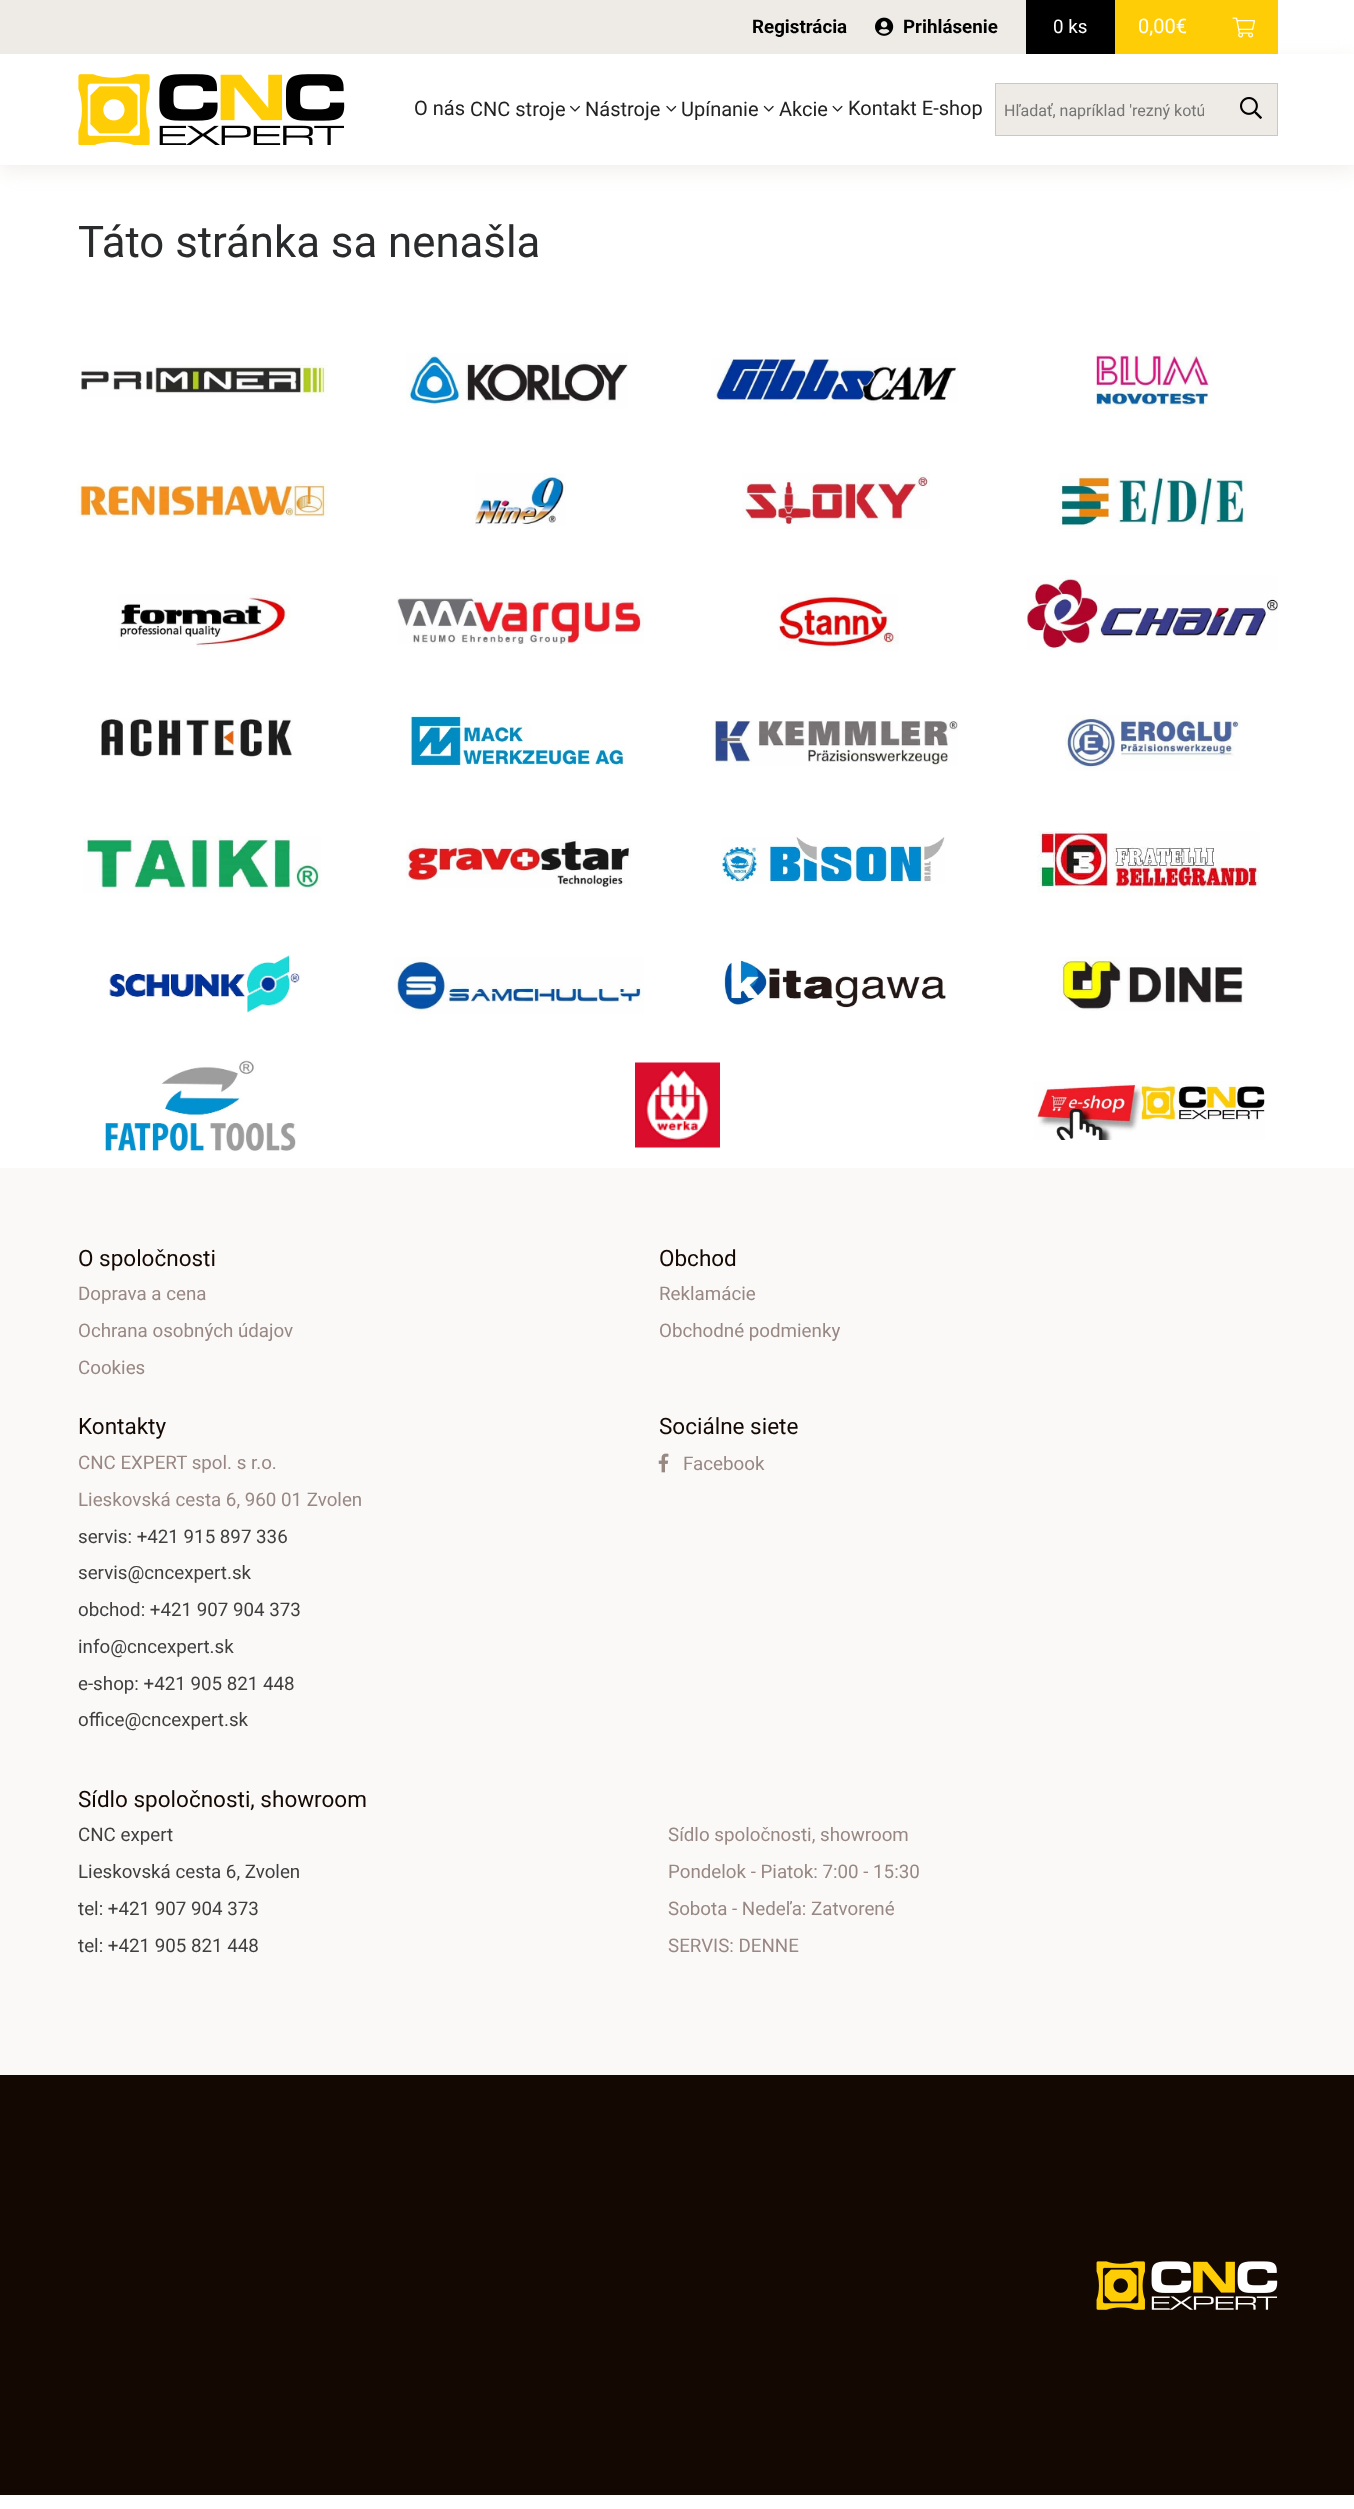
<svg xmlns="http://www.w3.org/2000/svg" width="1354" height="2509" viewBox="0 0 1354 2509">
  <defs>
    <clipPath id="clip1"><path d="M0 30H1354V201H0ZM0 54H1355V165H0Z" clip-rule="evenodd"/></clipPath>
    <clipPath id="clip2"><rect x="1005" y="101" width="199" height="19"/></clipPath>
  </defs>
  <rect width="100%" height="100%" fill="rgb(255,255,255)"/>
  <g clip-path="url(#clip1)">
    <rect x="0" y="60" width="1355" height="111" fill="rgba(238,234,230,0.75)" filter="blur(9.5px)"/>
  </g>
  <rect x="0" y="0" width="1026" height="54" fill="rgb(238,234,230)"/>
  <text x="752" y="33" font-family="Roboto" font-size="18.75" font-weight="bold" fill="rgb(0,0,0)">Registrácia</text>
  <image x="875" y="17" width="19" height="19" href="pic1.png"/>
  <text x="903" y="33" font-family="Roboto" font-size="18.75" font-weight="bold" fill="rgb(0,0,0)">Prihlásenie</text>
  <rect x="1026" y="0" width="89" height="54" fill="rgb(0,0,0)"/>
  <text x="1053" y="33" font-family="Roboto" font-size="18.75" fill="rgb(255,255,255)">0 ks</text>
  <rect x="1115" y="0" width="163" height="54" fill="rgb(255,205,5)"/>
  <text x="1138" y="33" font-family="Roboto" font-size="20" fill="rgb(255,255,255)">0,00€</text>
  <image x="1232" y="17" width="23" height="21" href="pic2.png"/>
  <image x="78" y="74" width="267" height="71" href="pic3.png"/>
  <g font-family="Roboto" font-size="20" fill="rgb(34,34,34)">
    <text x="414" y="115">O nás</text>
    <text x="470" y="116">CNC stroje</text>
  </g>
  <image x="570" y="105" width="10" height="7" href="pic4.png"/>
  <text x="585" y="116" font-family="Roboto" font-size="20" fill="rgb(34,34,34)">Nástroje</text>
  <image x="666" y="105" width="11" height="7" href="pic5.png"/>
  <text x="681" y="116" font-family="Roboto" font-size="20" fill="rgb(34,34,34)">Upínanie</text>
  <image x="763" y="105" width="11" height="7" href="pic6.png"/>
  <text x="779" y="116" font-family="Roboto" font-size="20" fill="rgb(34,34,34)">Akcie</text>
  <image x="832" y="105" width="11" height="7" href="pic7.png"/>
  <text x="848" y="115" font-family="Roboto" font-size="20" fill="rgb(34,34,34)">Kontakt E-shop</text>
  <rect x="995.5" y="83.5" width="282" height="52" fill="rgb(238,234,230)" stroke="rgb(202,199,196)"/>
  <g clip-path="url(#clip2)">
    <text x="1004" y="116" font-family="Roboto" font-size="16" fill="rgb(117,117,117)">Hľadať, napríklad 'rezný kotú</text>
  </g>
  <image x="1240" y="97" width="22" height="22" href="pic8.png"/>
  <text x="78" y="257" font-family="Roboto" font-size="43.75" fill="rgb(41,43,44)">Táto stránka sa nenašla</text>
  <image x="81" y="365" width="247" height="32" href="pic9.png"/>
  <image x="406" y="353" width="222" height="56" href="pic10.png"/>
  <image x="711" y="358" width="247" height="45" href="pic11.png"/>
  <image x="1096" y="352" width="113" height="57" href="pic12.png"/>
  <image x="77" y="480" width="251" height="37" href="pic13.png"/>
  <image x="475" y="473" width="91" height="53" href="pic14.png"/>
  <image x="742" y="473" width="188" height="56" href="pic15.png"/>
  <image x="1058" y="473" width="189" height="56" href="pic16.png"/>
  <image x="118" y="594" width="172" height="56" href="pic17.png"/>
  <image x="397" y="597" width="247" height="47" href="pic18.png"/>
  <image x="777" y="594" width="122" height="57" href="pic19.png"/>
  <image x="1027" y="575" width="251" height="75" href="pic20.png"/>
  <image x="100" y="718" width="193" height="41" href="pic21.png"/>
  <image x="410" y="713" width="216" height="53" href="pic22.png"/>
  <image x="711" y="720" width="247" height="46" href="pic23.png"/>
  <image x="1065" y="715" width="175" height="56" href="pic24.png"/>
  <image x="83" y="836" width="238" height="57" href="pic25.png"/>
  <image x="406" y="839" width="225" height="49" href="pic26.png"/>
  <image x="721" y="837" width="224" height="47" href="pic27.png"/>
  <image x="1037" y="831" width="223" height="62" href="pic28.png"/>
  <image x="107" y="955" width="197" height="58" href="pic29.png"/>
  <image x="394" y="957" width="250" height="57" href="pic30.png"/>
  <image x="723" y="958" width="223" height="50" href="pic31.png"/>
  <image x="1058" y="957" width="185" height="54" href="pic32.png"/>
  <image x="104" y="1060" width="192" height="92" href="pic33.png"/>
  <image x="635" y="1062" width="85" height="86" href="pic34.png"/>
  <image x="1033" y="1081" width="232" height="59" href="pic35.png"/>
  <rect x="0" y="1168" width="1354" height="907" fill="rgb(251,249,248)"/>
  <text x="78" y="1266" font-family="Roboto" font-size="22.5" fill="rgb(20,8,2)">O spoločnosti</text>
  <g font-family="Roboto" font-size="18.75" fill="rgb(152,136,132)">
    <text>
      <tspan x="78" y="1300">Doprava a cena</tspan>
      <tspan x="78" y="1337">Ochrana osobných údajov</tspan>
      <tspan x="78" y="1374">Cookies</tspan>
    </text>
  </g>
  <text x="659" y="1266" font-family="Roboto" font-size="22.5" fill="rgb(20,8,2)">Obchod</text>
  <g font-family="Roboto" font-size="18.75" fill="rgb(152,136,132)">
    <text>
      <tspan x="659" y="1300">Reklamácie</tspan>
      <tspan x="659" y="1337">Obchodné podmienky</tspan>
    </text>
  </g>
  <text x="78" y="1434" font-family="Roboto" font-size="22.5" fill="rgb(20,8,2)">Kontakty</text>
  <g font-family="Roboto" font-size="18.75" fill="rgb(152,136,132)">
    <text>
      <tspan x="78" y="1469">CNC EXPERT spol. s r.o.</tspan>
      <tspan x="78" y="1506">Lieskovská cesta 6, 960 01 Zvolen</tspan>
    </text>
  </g>
  <g font-family="Roboto" font-size="18.75" fill="rgb(63,63,63)">
    <text>
      <tspan x="78" y="1543">servis: +421 915 897 336</tspan>
      <tspan x="78" y="1579">servis@cncexpert.sk</tspan>
      <tspan x="78" y="1616">obchod: +421 907 904 373</tspan>
      <tspan x="78" y="1653">info@cncexpert.sk</tspan>
      <tspan x="78" y="1690">e-shop: +421 905 821 448</tspan>
      <tspan x="78" y="1726">office@cncexpert.sk</tspan>
    </text>
  </g>
  <text x="659" y="1434" font-family="Roboto" font-size="22.5" fill="rgb(20,8,2)">Sociálne siete</text>
  <image x="658" y="1453" width="11" height="20" href="pic36.png"/>
  <text x="683" y="1470" font-family="Roboto" font-size="18.75" fill="rgb(152,136,132)">Facebook</text>
  <text x="78" y="1807" font-family="Roboto" font-size="22.5" fill="rgb(20,8,2)">Sídlo spoločnosti, showroom</text>
  <g font-family="Roboto" font-size="18.75" fill="rgb(63,63,63)">
    <text>
      <tspan x="78" y="1841">CNC expert</tspan>
      <tspan x="78" y="1878">Lieskovská cesta 6, Zvolen</tspan>
      <tspan x="78" y="1915">tel: +421 907 904 373</tspan>
      <tspan x="78" y="1952">tel: +421 905 821 448</tspan>
    </text>
  </g>
  <g font-family="Roboto" font-size="18.75" fill="rgb(152,136,132)">
    <text>
      <tspan x="668" y="1841">Sídlo spoločnosti, showroom</tspan>
      <tspan x="668" y="1878">Pondelok - Piatok: 7:00 - 15:30</tspan>
      <tspan x="668" y="1915">Sobota - Nedeľa: Zatvorené</tspan>
      <tspan x="668" y="1952">SERVIS: DENNE</tspan>
    </text>
  </g>
  <rect x="0" y="2075" width="1354" height="420" fill="rgb(20,8,2)"/>
  <image x="1096" y="2261" width="182" height="49" href="pic37.png"/>
</svg>
